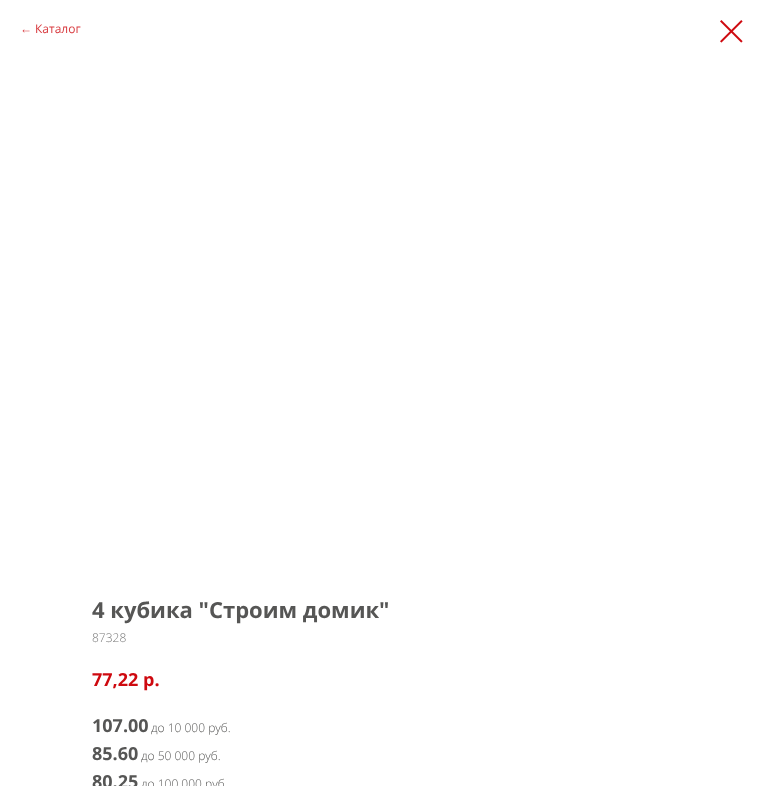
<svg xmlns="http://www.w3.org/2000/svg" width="763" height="786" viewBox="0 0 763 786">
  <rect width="100%" height="100%" fill="rgb(255,255,255)"/>
  <text x="20" y="33" font-family="Liberation Sans" font-size="12" fill="rgb(216,58,63)">←</text>
  <text x="35" y="33" font-family="Open Sans" font-size="12" fill="rgb(216,58,63)">Каталог</text>
  <image x="720" y="20" width="23" height="23" href="pic1.png"/>
  <text x="92" y="618" font-family="Open Sans" font-size="22" font-weight="bold" fill="rgb(86,86,85)">4 кубика "Строим домик"</text>
  <text x="92" y="642" font-family="Open Sans" font-size="12" font-weight="300" fill="rgb(119,119,119)">87328</text>
  <g font-family="Open Sans" font-size="18" font-weight="bold" fill="rgb(206,9,15)">
    <text x="92" y="686">77,22</text>
    <text x="143" y="686">р.</text>
  </g>
  <text x="92" y="732" font-family="Open Sans" font-size="18" font-weight="bold" fill="rgb(86,86,85)">107.00</text>
  <text x="151" y="732" font-family="Open Sans" font-size="12" font-weight="300" fill="rgb(86,86,85)">до 10 000 руб.</text>
  <text x="92" y="760" font-family="Open Sans" font-size="18" font-weight="bold" fill="rgb(86,86,85)">85.60</text>
  <text x="141" y="760" font-family="Open Sans" font-size="12" font-weight="300" fill="rgb(86,86,85)">до 50 000 руб.</text>
  <text x="92" y="788" font-family="Open Sans" font-size="18" font-weight="bold" fill="rgb(86,86,85)">80.25</text>
  <text x="141" y="788" font-family="Open Sans" font-size="12" font-weight="300" fill="rgb(86,86,85)">до 100 000 руб</text>
</svg>
